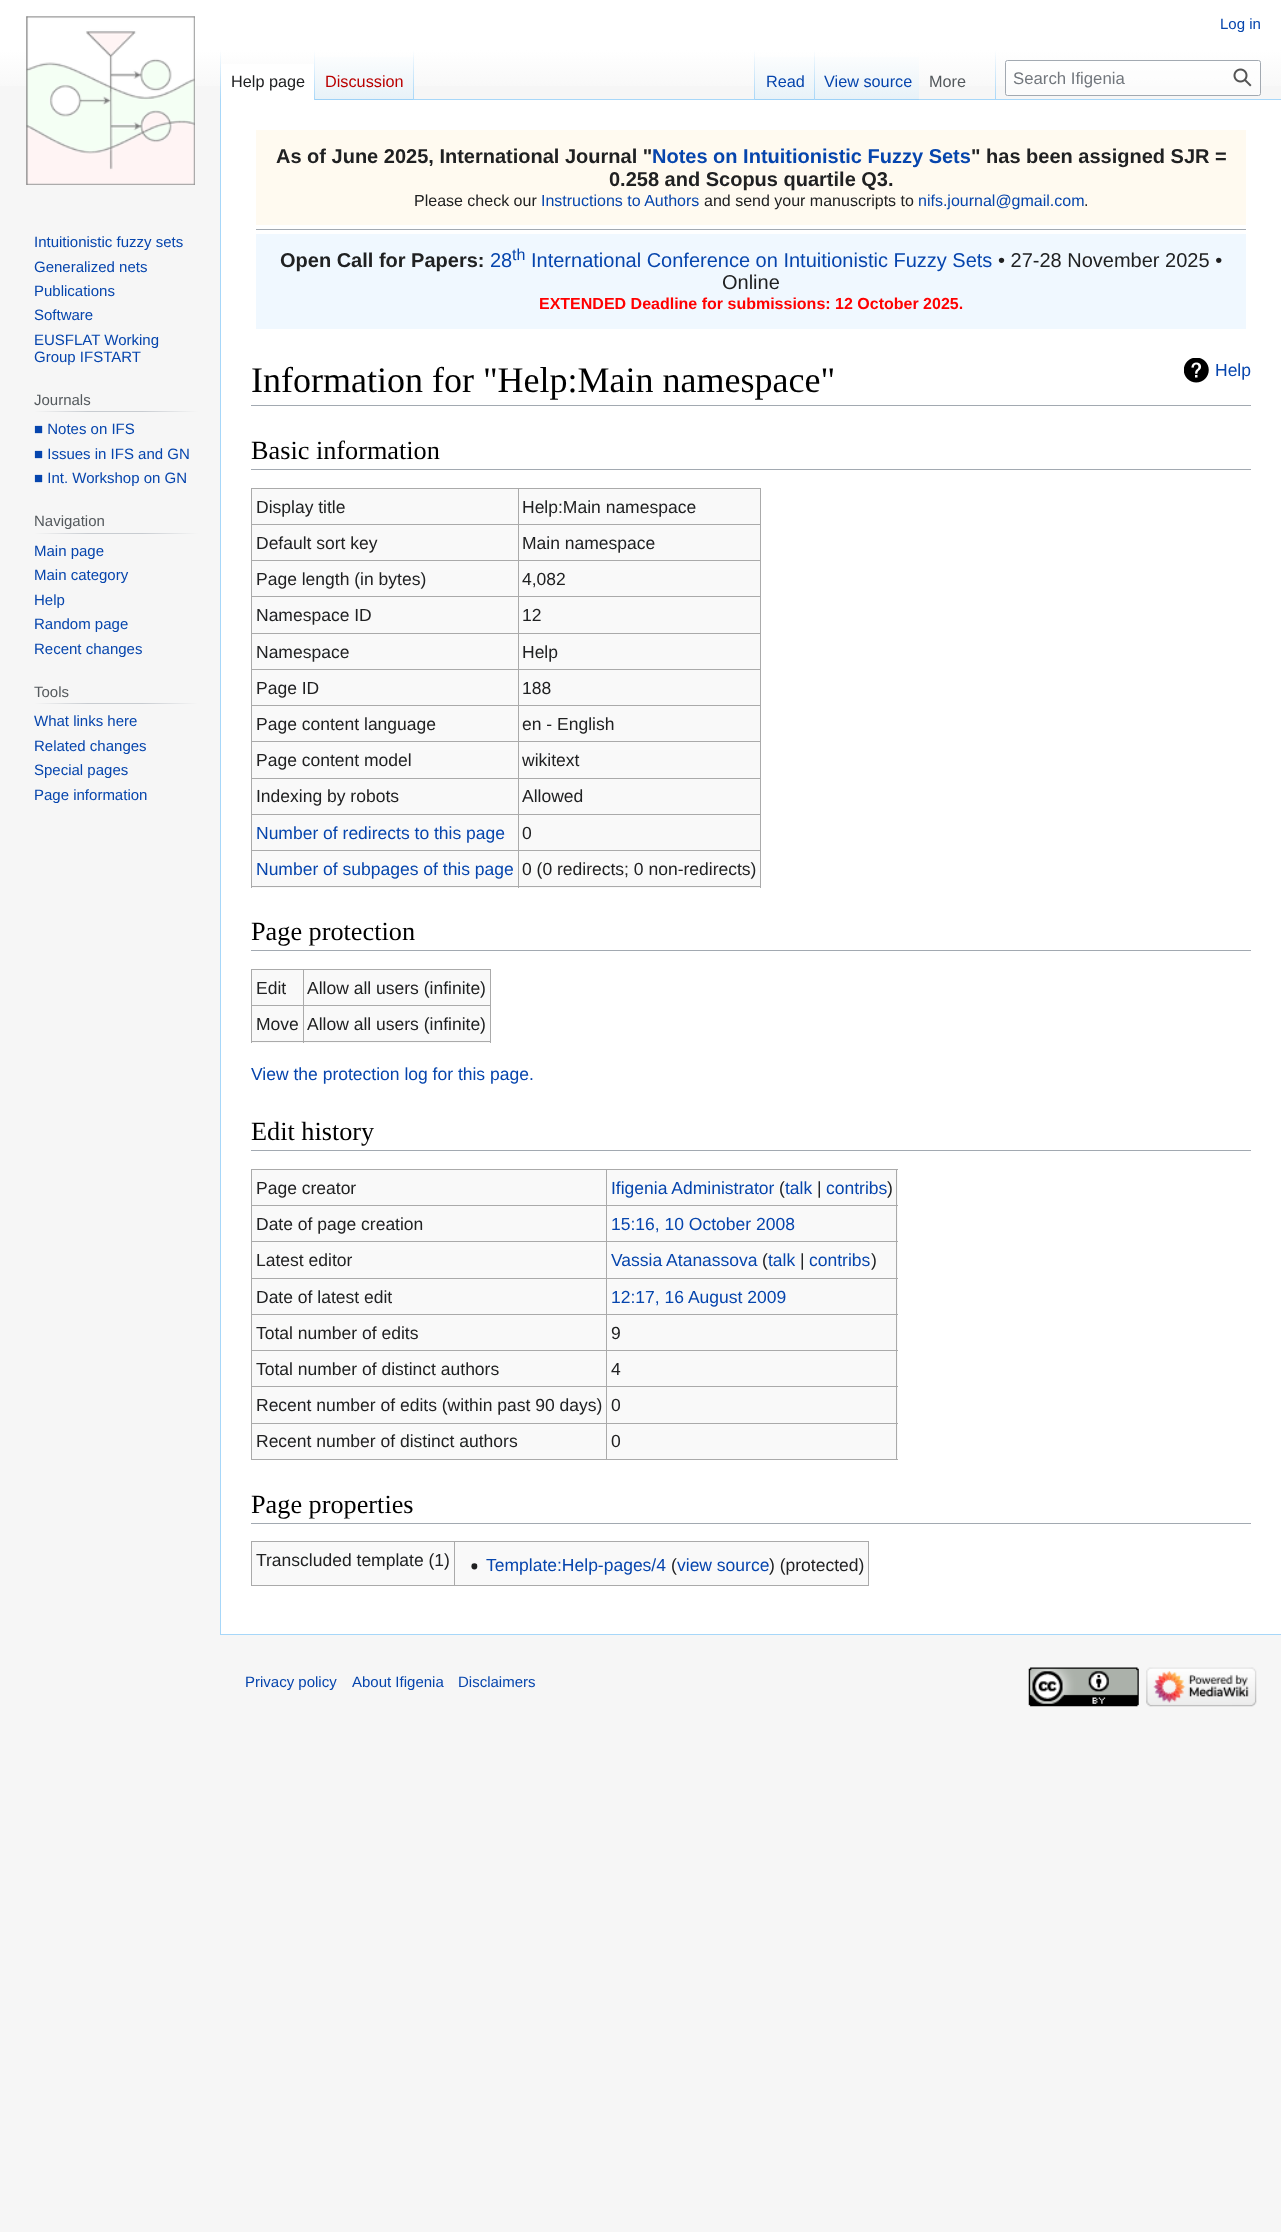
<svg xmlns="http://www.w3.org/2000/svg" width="1281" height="2232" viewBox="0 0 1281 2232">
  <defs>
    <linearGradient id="g1" gradientUnits="userSpaceOnUse" x1="641" y1="0" x2="641" y2="100"><stop offset="0.5" stop-color="rgb(255,255,255)"/><stop offset="1" stop-color="rgb(246,246,246)"/></linearGradient>
    <linearGradient id="g2" gradientUnits="userSpaceOnUse" x1="221" y1="50" x2="221" y2="100"><stop offset="0" stop-color="rgb(167,215,249)" stop-opacity="0"/><stop offset="1" stop-color="rgb(167,215,249)"/></linearGradient>
    <linearGradient id="g3" gradientUnits="userSpaceOnUse" x1="314" y1="50" x2="314" y2="100"><stop offset="0" stop-color="rgb(255,255,255)"/><stop offset="1" stop-color="rgb(167,215,249)"/></linearGradient>
    <linearGradient id="g4" gradientUnits="userSpaceOnUse" x1="364" y1="100" x2="364" y2="50"><stop offset="0" stop-color="rgb(119,193,246)"/><stop offset="0.03" stop-color="rgb(232,242,248)"/><stop offset="1" stop-color="rgb(255,255,255)"/></linearGradient>
    <linearGradient id="g5" gradientUnits="userSpaceOnUse" x1="413" y1="50" x2="413" y2="100"><stop offset="0" stop-color="rgb(167,215,249)" stop-opacity="0"/><stop offset="1" stop-color="rgb(167,215,249)"/></linearGradient>
    <linearGradient id="g6" gradientUnits="userSpaceOnUse" x1="754" y1="50" x2="754" y2="100"><stop offset="0" stop-color="rgb(167,215,249)" stop-opacity="0"/><stop offset="1" stop-color="rgb(167,215,249)"/></linearGradient>
    <linearGradient id="g7" gradientUnits="userSpaceOnUse" x1="785" y1="100" x2="785" y2="50"><stop offset="0" stop-color="rgb(119,193,246)"/><stop offset="0.03" stop-color="rgb(232,242,248)"/><stop offset="1" stop-color="rgb(255,255,255)"/></linearGradient>
    <linearGradient id="g8" gradientUnits="userSpaceOnUse" x1="814" y1="50" x2="814" y2="100"><stop offset="0" stop-color="rgb(167,215,249)" stop-opacity="0"/><stop offset="1" stop-color="rgb(167,215,249)"/></linearGradient>
    <linearGradient id="g9" gradientUnits="userSpaceOnUse" x1="867" y1="100" x2="867" y2="50"><stop offset="0" stop-color="rgb(119,193,246)"/><stop offset="0.03" stop-color="rgb(232,242,248)"/><stop offset="1" stop-color="rgb(255,255,255)"/></linearGradient>
    <linearGradient id="g10" gradientUnits="userSpaceOnUse" x1="996" y1="50" x2="996" y2="100"><stop offset="0" stop-color="rgb(167,215,249)" stop-opacity="0"/><stop offset="1" stop-color="rgb(167,215,249)"/></linearGradient>
    <linearGradient id="g11" gradientUnits="userSpaceOnUse" x1="34" y1="412" x2="198" y2="412"><stop offset="0" stop-color="rgb(246,246,246)"/><stop offset="0.33" stop-color="rgb(200,204,209)"/><stop offset="0.66" stop-color="rgb(200,204,209)"/><stop offset="1" stop-color="rgb(246,246,246)"/></linearGradient>
    <linearGradient id="g12" gradientUnits="userSpaceOnUse" x1="34" y1="533" x2="198" y2="533"><stop offset="0" stop-color="rgb(246,246,246)"/><stop offset="0.33" stop-color="rgb(200,204,209)"/><stop offset="0.66" stop-color="rgb(200,204,209)"/><stop offset="1" stop-color="rgb(246,246,246)"/></linearGradient>
    <linearGradient id="g13" gradientUnits="userSpaceOnUse" x1="34" y1="703" x2="198" y2="703"><stop offset="0" stop-color="rgb(246,246,246)"/><stop offset="0.33" stop-color="rgb(200,204,209)"/><stop offset="0.66" stop-color="rgb(200,204,209)"/><stop offset="1" stop-color="rgb(246,246,246)"/></linearGradient>
  </defs>
  <rect width="100%" height="100%" fill="rgb(246,246,246)"/>
  <rect x="0" y="0" width="1281" height="86" fill="url(#g1)"/>
  <text x="1220" y="29" font-family="Liberation Sans" font-size="15" fill="rgb(6,69,173)">Log in</text>
  <rect x="220" y="1634" width="1061" height="1" fill="rgb(167,215,249)"/>
  <rect x="220" y="99" width="1" height="1536" fill="rgb(167,215,249)"/>
  <rect x="220" y="50" width="1" height="50" fill="url(#g2)"/>
  <rect x="221" y="64" width="93" height="36" fill="rgb(255,255,255)"/>
  <rect x="314" y="50" width="1" height="50" fill="url(#g3)"/>
  <text x="231" y="87" font-family="Liberation Sans" font-size="16.25" fill="rgb(32,33,34)">Help page</text>
  <rect x="315" y="57" width="99" height="43" fill="url(#g4)"/>
  <rect x="413" y="50" width="1" height="50" fill="url(#g5)"/>
  <text x="325" y="87" font-family="Liberation Sans" font-size="16.25" fill="rgb(186,0,0)">Discussion</text>
  <rect x="414" y="99" width="867" height="1" fill="rgb(167,215,249)"/>
  <rect x="754" y="50" width="1" height="50" fill="url(#g6)"/>
  <rect x="755" y="57" width="60" height="43" fill="url(#g7)"/>
  <rect x="814" y="50" width="1" height="50" fill="url(#g8)"/>
  <text x="766" y="87" font-family="Liberation Sans" font-size="16.25" fill="rgb(6,69,173)">Read</text>
  <rect x="815" y="57" width="104" height="43" fill="url(#g9)"/>
  <text x="824" y="87" font-family="Liberation Sans" font-size="16.25" fill="rgb(6,69,173)">View source</text>
  <rect x="995" y="50" width="1" height="50" fill="url(#g10)"/>
  <text x="929" y="87" font-family="Liberation Sans" font-size="16.25" fill="rgb(84,89,93)">More</text>
  <rect x="1005.5" y="60.5" width="255" height="35" rx="2" fill="rgba(255,255,255,0.5)" stroke="rgb(162,169,177)"/>
  <text x="1013" y="84" font-family="Liberation Sans" font-size="16.75" fill="rgb(114,119,125)">Search Ifigenia</text>
  <image x="1233" y="68" width="19" height="19" href="pic1.png"/>
  <image x="26" y="16" width="169" height="169" href="pic2.png"/>
  <g font-family="Liberation Sans" font-size="15" fill="rgb(6,69,173)">
    <text>
      <tspan x="34" y="247">Intuitionistic fuzzy sets</tspan>
      <tspan x="34" y="272">Generalized nets</tspan>
      <tspan x="34" y="296">Publications</tspan>
      <tspan x="34" y="320">Software</tspan>
      <tspan x="34" y="345">EUSFLAT Working</tspan>
      <tspan x="34" y="362">Group IFSTART</tspan>
    </text>
  </g>
  <rect x="34" y="411" width="164" height="1" fill="url(#g11)"/>
  <text x="34" y="405" font-family="Liberation Sans" font-size="15" fill="rgb(84,89,93)">Journals</text>
  <g font-family="Liberation Sans" font-size="15" fill="rgb(6,69,173)">
    <text>
      <tspan x="34" y="434">■ Notes on IFS</tspan>
      <tspan x="34" y="459">■ Issues in IFS and GN</tspan>
      <tspan x="34" y="483">■ Int. Workshop on GN</tspan>
    </text>
  </g>
  <rect x="34" y="533" width="164" height="1" fill="url(#g12)"/>
  <text x="34" y="526" font-family="Liberation Sans" font-size="15" fill="rgb(84,89,93)">Navigation</text>
  <g font-family="Liberation Sans" font-size="15" fill="rgb(6,69,173)">
    <text>
      <tspan x="34" y="556">Main page</tspan>
      <tspan x="34" y="580">Main category</tspan>
      <tspan x="34" y="605">Help</tspan>
      <tspan x="34" y="629">Random page</tspan>
      <tspan x="34" y="654">Recent changes</tspan>
    </text>
  </g>
  <rect x="34" y="703" width="164" height="1" fill="url(#g13)"/>
  <text x="34" y="697" font-family="Liberation Sans" font-size="15" fill="rgb(84,89,93)">Tools</text>
  <g font-family="Liberation Sans" font-size="15" fill="rgb(6,69,173)">
    <text>
      <tspan x="34" y="726">What links here</tspan>
      <tspan x="34" y="751">Related changes</tspan>
      <tspan x="34" y="775">Special pages</tspan>
      <tspan x="34" y="800">Page information</tspan>
    </text>
  </g>
  <rect x="221" y="100" width="1060" height="1534" fill="rgb(255,255,255)"/>
  <rect x="256" y="130" width="990" height="95" fill="rgb(255,250,240)"/>
  <text x="276" y="163" font-family="Liberation Sans" font-size="20" font-weight="bold" fill="rgb(32,33,34)">As of June 2025, International Journal "</text>
  <text x="652" y="163" font-family="Liberation Sans" font-size="20" font-weight="bold" fill="rgb(6,69,173)">Notes on Intuitionistic Fuzzy Sets</text>
  <g font-family="Liberation Sans" font-size="20" font-weight="bold" fill="rgb(32,33,34)">
    <text x="971" y="163">" has been assigned SJR =</text>
    <text x="609" y="186">0.258 and Scopus quartile Q3.</text>
  </g>
  <text x="414" y="206" font-family="Liberation Sans" font-size="16" fill="rgb(32,33,34)">Please check our</text>
  <text x="541" y="206" font-family="Liberation Sans" font-size="16" fill="rgb(6,69,173)">Instructions to Authors</text>
  <text x="704" y="206" font-family="Liberation Sans" font-size="16" fill="rgb(32,33,34)">and send your manuscripts to</text>
  <text x="918" y="206" font-family="Liberation Sans" font-size="16" fill="rgb(6,69,173)">nifs.journal@gmail.com</text>
  <text x="1084" y="206" font-family="Liberation Sans" font-size="16" fill="rgb(32,33,34)">.</text>
  <rect x="256" y="229" width="990" height="1" fill="rgb(162,169,177)"/>
  <rect x="256" y="234" width="990" height="95" fill="rgb(240,248,255)"/>
  <text x="280" y="267" font-family="Liberation Sans" font-size="20" font-weight="bold" fill="rgb(32,33,34)">Open Call for Papers:</text>
  <text x="490" y="267" font-family="Liberation Sans" font-size="20" fill="rgb(6,69,173)">28</text>
  <text x="512" y="260" font-family="Liberation Sans" font-size="16" fill="rgb(6,69,173)">th</text>
  <text x="531" y="267" font-family="Liberation Sans" font-size="20" fill="rgb(6,69,173)">International Conference on Intuitionistic Fuzzy Sets</text>
  <g font-family="Liberation Sans" font-size="20" fill="rgb(32,33,34)">
    <text x="998" y="267">• 27-28 November 2025 •</text>
    <text x="722" y="289">Online</text>
  </g>
  <text x="539" y="309" font-family="Liberation Sans" font-size="16" font-weight="bold" fill="rgb(255,0,0)">EXTENDED Deadline for submissions: 12 October 2025.</text>
  <rect x="251" y="405" width="1000" height="1" fill="rgb(162,169,177)"/>
  <text x="251" y="392" font-family="Liberation Serif" font-size="36" fill="rgb(0,0,0)">Information for "Help:Main namespace"</text>
  <image x="1184" y="358" width="25" height="25" href="pic3.png"/>
  <text x="1215" y="376" font-family="Liberation Sans" font-size="17.5" fill="rgb(6,69,173)">Help</text>
  <rect x="251" y="469" width="1000" height="1" fill="rgb(162,169,177)"/>
  <text x="251" y="459" font-family="Liberation Serif" font-size="26.25" fill="rgb(0,0,0)">Basic information</text>
  <rect x="252" y="489" width="508" height="399" fill="rgb(249,249,249)"/>
  <rect x="251" y="488" width="510" height="1" fill="rgb(170,170,170)"/>
  <rect x="760" y="488" width="1" height="400" fill="rgb(170,170,170)"/>
  <rect x="251" y="886" width="510" height="1" fill="rgb(170,170,170)"/>
  <rect x="251" y="488" width="1" height="400" fill="rgb(170,170,170)"/>
  <text x="256" y="513" font-family="Liberation Sans" font-size="17.5" fill="rgb(32,33,34)">Display title</text>
  <rect x="518" y="524" width="243" height="1" fill="rgb(170,170,170)"/>
  <rect x="518" y="560" width="243" height="1" fill="rgb(170,170,170)"/>
  <rect x="518" y="596" width="243" height="1" fill="rgb(170,170,170)"/>
  <rect x="518" y="633" width="243" height="1" fill="rgb(170,170,170)"/>
  <rect x="518" y="669" width="243" height="1" fill="rgb(170,170,170)"/>
  <rect x="518" y="705" width="243" height="1" fill="rgb(170,170,170)"/>
  <rect x="518" y="741" width="243" height="1" fill="rgb(170,170,170)"/>
  <rect x="518" y="778" width="243" height="1" fill="rgb(170,170,170)"/>
  <rect x="518" y="814" width="243" height="1" fill="rgb(170,170,170)"/>
  <rect x="518" y="850" width="243" height="1" fill="rgb(170,170,170)"/>
  <rect x="518" y="850" width="1" height="38" fill="rgb(170,170,170)"/>
  <rect x="251" y="850" width="268" height="1" fill="rgb(170,170,170)"/>
  <rect x="518" y="814" width="1" height="37" fill="rgb(170,170,170)"/>
  <rect x="251" y="814" width="268" height="1" fill="rgb(170,170,170)"/>
  <rect x="518" y="778" width="1" height="37" fill="rgb(170,170,170)"/>
  <rect x="251" y="778" width="268" height="1" fill="rgb(170,170,170)"/>
  <rect x="518" y="741" width="1" height="38" fill="rgb(170,170,170)"/>
  <rect x="251" y="741" width="268" height="1" fill="rgb(170,170,170)"/>
  <rect x="518" y="705" width="1" height="38" fill="rgb(170,170,170)"/>
  <rect x="251" y="705" width="268" height="1" fill="rgb(170,170,170)"/>
  <rect x="518" y="669" width="1" height="37" fill="rgb(170,170,170)"/>
  <rect x="251" y="669" width="268" height="1" fill="rgb(170,170,170)"/>
  <rect x="518" y="633" width="1" height="37" fill="rgb(170,170,170)"/>
  <rect x="251" y="633" width="268" height="1" fill="rgb(170,170,170)"/>
  <rect x="518" y="596" width="1" height="38" fill="rgb(170,170,170)"/>
  <rect x="251" y="596" width="268" height="1" fill="rgb(170,170,170)"/>
  <rect x="518" y="560" width="1" height="38" fill="rgb(170,170,170)"/>
  <rect x="251" y="560" width="268" height="1" fill="rgb(170,170,170)"/>
  <rect x="518" y="524" width="1" height="37" fill="rgb(170,170,170)"/>
  <rect x="251" y="524" width="268" height="1" fill="rgb(170,170,170)"/>
  <rect x="518" y="488" width="1" height="37" fill="rgb(170,170,170)"/>
  <g font-family="Liberation Sans" font-size="17.5" fill="rgb(32,33,34)">
    <text x="522" y="513">Help:Main namespace</text>
    <text x="256" y="549">Default sort key</text>
    <text x="522" y="549">Main namespace</text>
    <text x="256" y="585">Page length (in bytes)</text>
    <text x="522" y="585">4,082</text>
    <text x="256" y="621">Namespace ID</text>
    <text x="522" y="621">12</text>
    <text x="256" y="658">Namespace</text>
    <text x="522" y="658">Help</text>
    <text x="256" y="694">Page ID</text>
    <text x="522" y="694">188</text>
    <text x="256" y="730">Page content language</text>
    <text x="522" y="730">en - English</text>
    <text x="256" y="766">Page content model</text>
    <text x="522" y="766">wikitext</text>
    <text x="256" y="802">Indexing by robots</text>
    <text x="522" y="802">Allowed</text>
  </g>
  <text x="256" y="839" font-family="Liberation Sans" font-size="17.5" fill="rgb(6,69,173)">Number of redirects to this page</text>
  <text x="522" y="839" font-family="Liberation Sans" font-size="17.5" fill="rgb(32,33,34)">0</text>
  <text x="256" y="875" font-family="Liberation Sans" font-size="17.5" fill="rgb(6,69,173)">Number of subpages of this page</text>
  <text x="522" y="875" font-family="Liberation Sans" font-size="17.5" fill="rgb(32,33,34)">0 (0 redirects; 0 non-redirects)</text>
  <rect x="251" y="950" width="1000" height="1" fill="rgb(162,169,177)"/>
  <text x="251" y="940" font-family="Liberation Serif" font-size="26.25" fill="rgb(0,0,0)">Page protection</text>
  <rect x="252" y="970" width="238" height="73" fill="rgb(249,249,249)"/>
  <rect x="251" y="969" width="240" height="1" fill="rgb(170,170,170)"/>
  <rect x="490" y="969" width="1" height="74" fill="rgb(170,170,170)"/>
  <rect x="251" y="1041" width="240" height="1" fill="rgb(170,170,170)"/>
  <rect x="251" y="969" width="1" height="74" fill="rgb(170,170,170)"/>
  <text x="256" y="994" font-family="Liberation Sans" font-size="17.5" fill="rgb(32,33,34)">Edit</text>
  <rect x="303" y="1005" width="188" height="1" fill="rgb(170,170,170)"/>
  <rect x="303" y="1005" width="1" height="38" fill="rgb(170,170,170)"/>
  <rect x="251" y="1005" width="53" height="1" fill="rgb(170,170,170)"/>
  <rect x="303" y="969" width="1" height="37" fill="rgb(170,170,170)"/>
  <g font-family="Liberation Sans" font-size="17.5" fill="rgb(32,33,34)">
    <text x="307" y="994">Allow all users (infinite)</text>
    <text x="256" y="1030">Move</text>
    <text x="307" y="1030">Allow all users (infinite)</text>
  </g>
  <text x="251" y="1080" font-family="Liberation Sans" font-size="17.5" fill="rgb(6,69,173)">View the protection log for this page.</text>
  <rect x="251" y="1150" width="1000" height="1" fill="rgb(162,169,177)"/>
  <text x="251" y="1140" font-family="Liberation Serif" font-size="26.25" fill="rgb(0,0,0)">Edit history</text>
  <rect x="252" y="1170" width="646" height="289" fill="rgb(249,249,249)"/>
  <rect x="251" y="1169" width="647" height="1" fill="rgb(170,170,170)"/>
  <rect x="896" y="1169" width="1" height="291" fill="rgb(170,170,170)"/>
  <rect x="251" y="1459" width="647" height="1" fill="rgb(170,170,170)"/>
  <rect x="251" y="1169" width="1" height="291" fill="rgb(170,170,170)"/>
  <text x="256" y="1194" font-family="Liberation Sans" font-size="17.5" fill="rgb(32,33,34)">Page creator</text>
  <rect x="606" y="1205" width="292" height="1" fill="rgb(170,170,170)"/>
  <rect x="606" y="1241" width="292" height="1" fill="rgb(170,170,170)"/>
  <rect x="606" y="1278" width="292" height="1" fill="rgb(170,170,170)"/>
  <rect x="606" y="1314" width="292" height="1" fill="rgb(170,170,170)"/>
  <rect x="606" y="1350" width="292" height="1" fill="rgb(170,170,170)"/>
  <rect x="606" y="1386" width="292" height="1" fill="rgb(170,170,170)"/>
  <rect x="606" y="1423" width="292" height="1" fill="rgb(170,170,170)"/>
  <rect x="606" y="1423" width="1" height="37" fill="rgb(170,170,170)"/>
  <rect x="251" y="1423" width="357" height="1" fill="rgb(170,170,170)"/>
  <rect x="606" y="1386" width="1" height="38" fill="rgb(170,170,170)"/>
  <rect x="251" y="1386" width="357" height="1" fill="rgb(170,170,170)"/>
  <rect x="606" y="1350" width="1" height="38" fill="rgb(170,170,170)"/>
  <rect x="251" y="1350" width="357" height="1" fill="rgb(170,170,170)"/>
  <rect x="606" y="1314" width="1" height="37" fill="rgb(170,170,170)"/>
  <rect x="251" y="1314" width="357" height="1" fill="rgb(170,170,170)"/>
  <rect x="606" y="1278" width="1" height="37" fill="rgb(170,170,170)"/>
  <rect x="251" y="1278" width="357" height="1" fill="rgb(170,170,170)"/>
  <rect x="606" y="1241" width="1" height="38" fill="rgb(170,170,170)"/>
  <rect x="251" y="1241" width="357" height="1" fill="rgb(170,170,170)"/>
  <rect x="606" y="1205" width="1" height="38" fill="rgb(170,170,170)"/>
  <rect x="251" y="1205" width="357" height="1" fill="rgb(170,170,170)"/>
  <rect x="606" y="1169" width="1" height="37" fill="rgb(170,170,170)"/>
  <text x="611" y="1194" font-family="Liberation Sans" font-size="17.5" fill="rgb(6,69,173)">Ifigenia Administrator</text>
  <text x="779" y="1194" font-family="Liberation Sans" font-size="17.5" fill="rgb(32,33,34)">(</text>
  <text x="785" y="1194" font-family="Liberation Sans" font-size="17.5" fill="rgb(6,69,173)">talk</text>
  <text x="817" y="1194" font-family="Liberation Sans" font-size="17.5" fill="rgb(32,33,34)">|</text>
  <text x="826" y="1194" font-family="Liberation Sans" font-size="17.5" fill="rgb(6,69,173)">contribs</text>
  <g font-family="Liberation Sans" font-size="17.5" fill="rgb(32,33,34)">
    <text x="887" y="1194">)</text>
    <text x="256" y="1230">Date of page creation</text>
  </g>
  <text x="611" y="1230" font-family="Liberation Sans" font-size="17.5" fill="rgb(6,69,173)">15:16, 10 October 2008</text>
  <text x="256" y="1266" font-family="Liberation Sans" font-size="17.5" fill="rgb(32,33,34)">Latest editor</text>
  <text x="611" y="1266" font-family="Liberation Sans" font-size="17.5" fill="rgb(6,69,173)">Vassia Atanassova</text>
  <text x="762" y="1266" font-family="Liberation Sans" font-size="17.5" fill="rgb(32,33,34)">(</text>
  <text x="768" y="1266" font-family="Liberation Sans" font-size="17.5" fill="rgb(6,69,173)">talk</text>
  <text x="800" y="1266" font-family="Liberation Sans" font-size="17.5" fill="rgb(32,33,34)">|</text>
  <text x="809" y="1266" font-family="Liberation Sans" font-size="17.5" fill="rgb(6,69,173)">contribs</text>
  <g font-family="Liberation Sans" font-size="17.5" fill="rgb(32,33,34)">
    <text x="871" y="1266">)</text>
    <text x="256" y="1303">Date of latest edit</text>
  </g>
  <text x="611" y="1303" font-family="Liberation Sans" font-size="17.5" fill="rgb(6,69,173)">12:17, 16 August 2009</text>
  <g font-family="Liberation Sans" font-size="17.5" fill="rgb(32,33,34)">
    <text x="256" y="1339">Total number of edits</text>
    <text x="611" y="1339">9</text>
    <text x="256" y="1375">Total number of distinct authors</text>
    <text x="611" y="1375">4</text>
    <text x="256" y="1411">Recent number of edits (within past 90 days)</text>
    <text x="611" y="1411">0</text>
    <text x="256" y="1447">Recent number of distinct authors</text>
    <text x="611" y="1447">0</text>
  </g>
  <rect x="251" y="1523" width="1000" height="1" fill="rgb(162,169,177)"/>
  <text x="251" y="1513" font-family="Liberation Serif" font-size="26.25" fill="rgb(0,0,0)">Page properties</text>
  <rect x="252" y="1542" width="616" height="43" fill="rgb(249,249,249)"/>
  <rect x="251" y="1541" width="618" height="1" fill="rgb(170,170,170)"/>
  <rect x="868" y="1541" width="1" height="45" fill="rgb(170,170,170)"/>
  <rect x="251" y="1585" width="618" height="1" fill="rgb(170,170,170)"/>
  <rect x="251" y="1541" width="1" height="45" fill="rgb(170,170,170)"/>
  <text x="256" y="1566" font-family="Liberation Sans" font-size="17.5" fill="rgb(32,33,34)">Transcluded template (1)</text>
  <rect x="454" y="1541" width="1" height="45" fill="rgb(170,170,170)"/>
  <image x="471" y="1563" width="7" height="7" href="pic4.png"/>
  <text x="486" y="1571" font-family="Liberation Sans" font-size="17.5" fill="rgb(6,69,173)">Template:Help-pages/4</text>
  <text x="671" y="1571" font-family="Liberation Sans" font-size="17.5" fill="rgb(32,33,34)">(</text>
  <text x="677" y="1571" font-family="Liberation Sans" font-size="17.5" fill="rgb(6,69,173)">view source</text>
  <text x="769" y="1571" font-family="Liberation Sans" font-size="17.5" fill="rgb(32,33,34)">) (protected)</text>
  <g font-family="Liberation Sans" font-size="15" fill="rgb(6,69,173)">
    <text x="245" y="1687">Privacy policy</text>
    <text x="352" y="1687">About Ifigenia</text>
    <text x="458" y="1687">Disclaimers</text>
  </g>
  <image x="1028" y="1667" width="111" height="40" href="pic5.png"/>
  <image x="1146" y="1667" width="111" height="40" href="pic6.png"/>
</svg>
